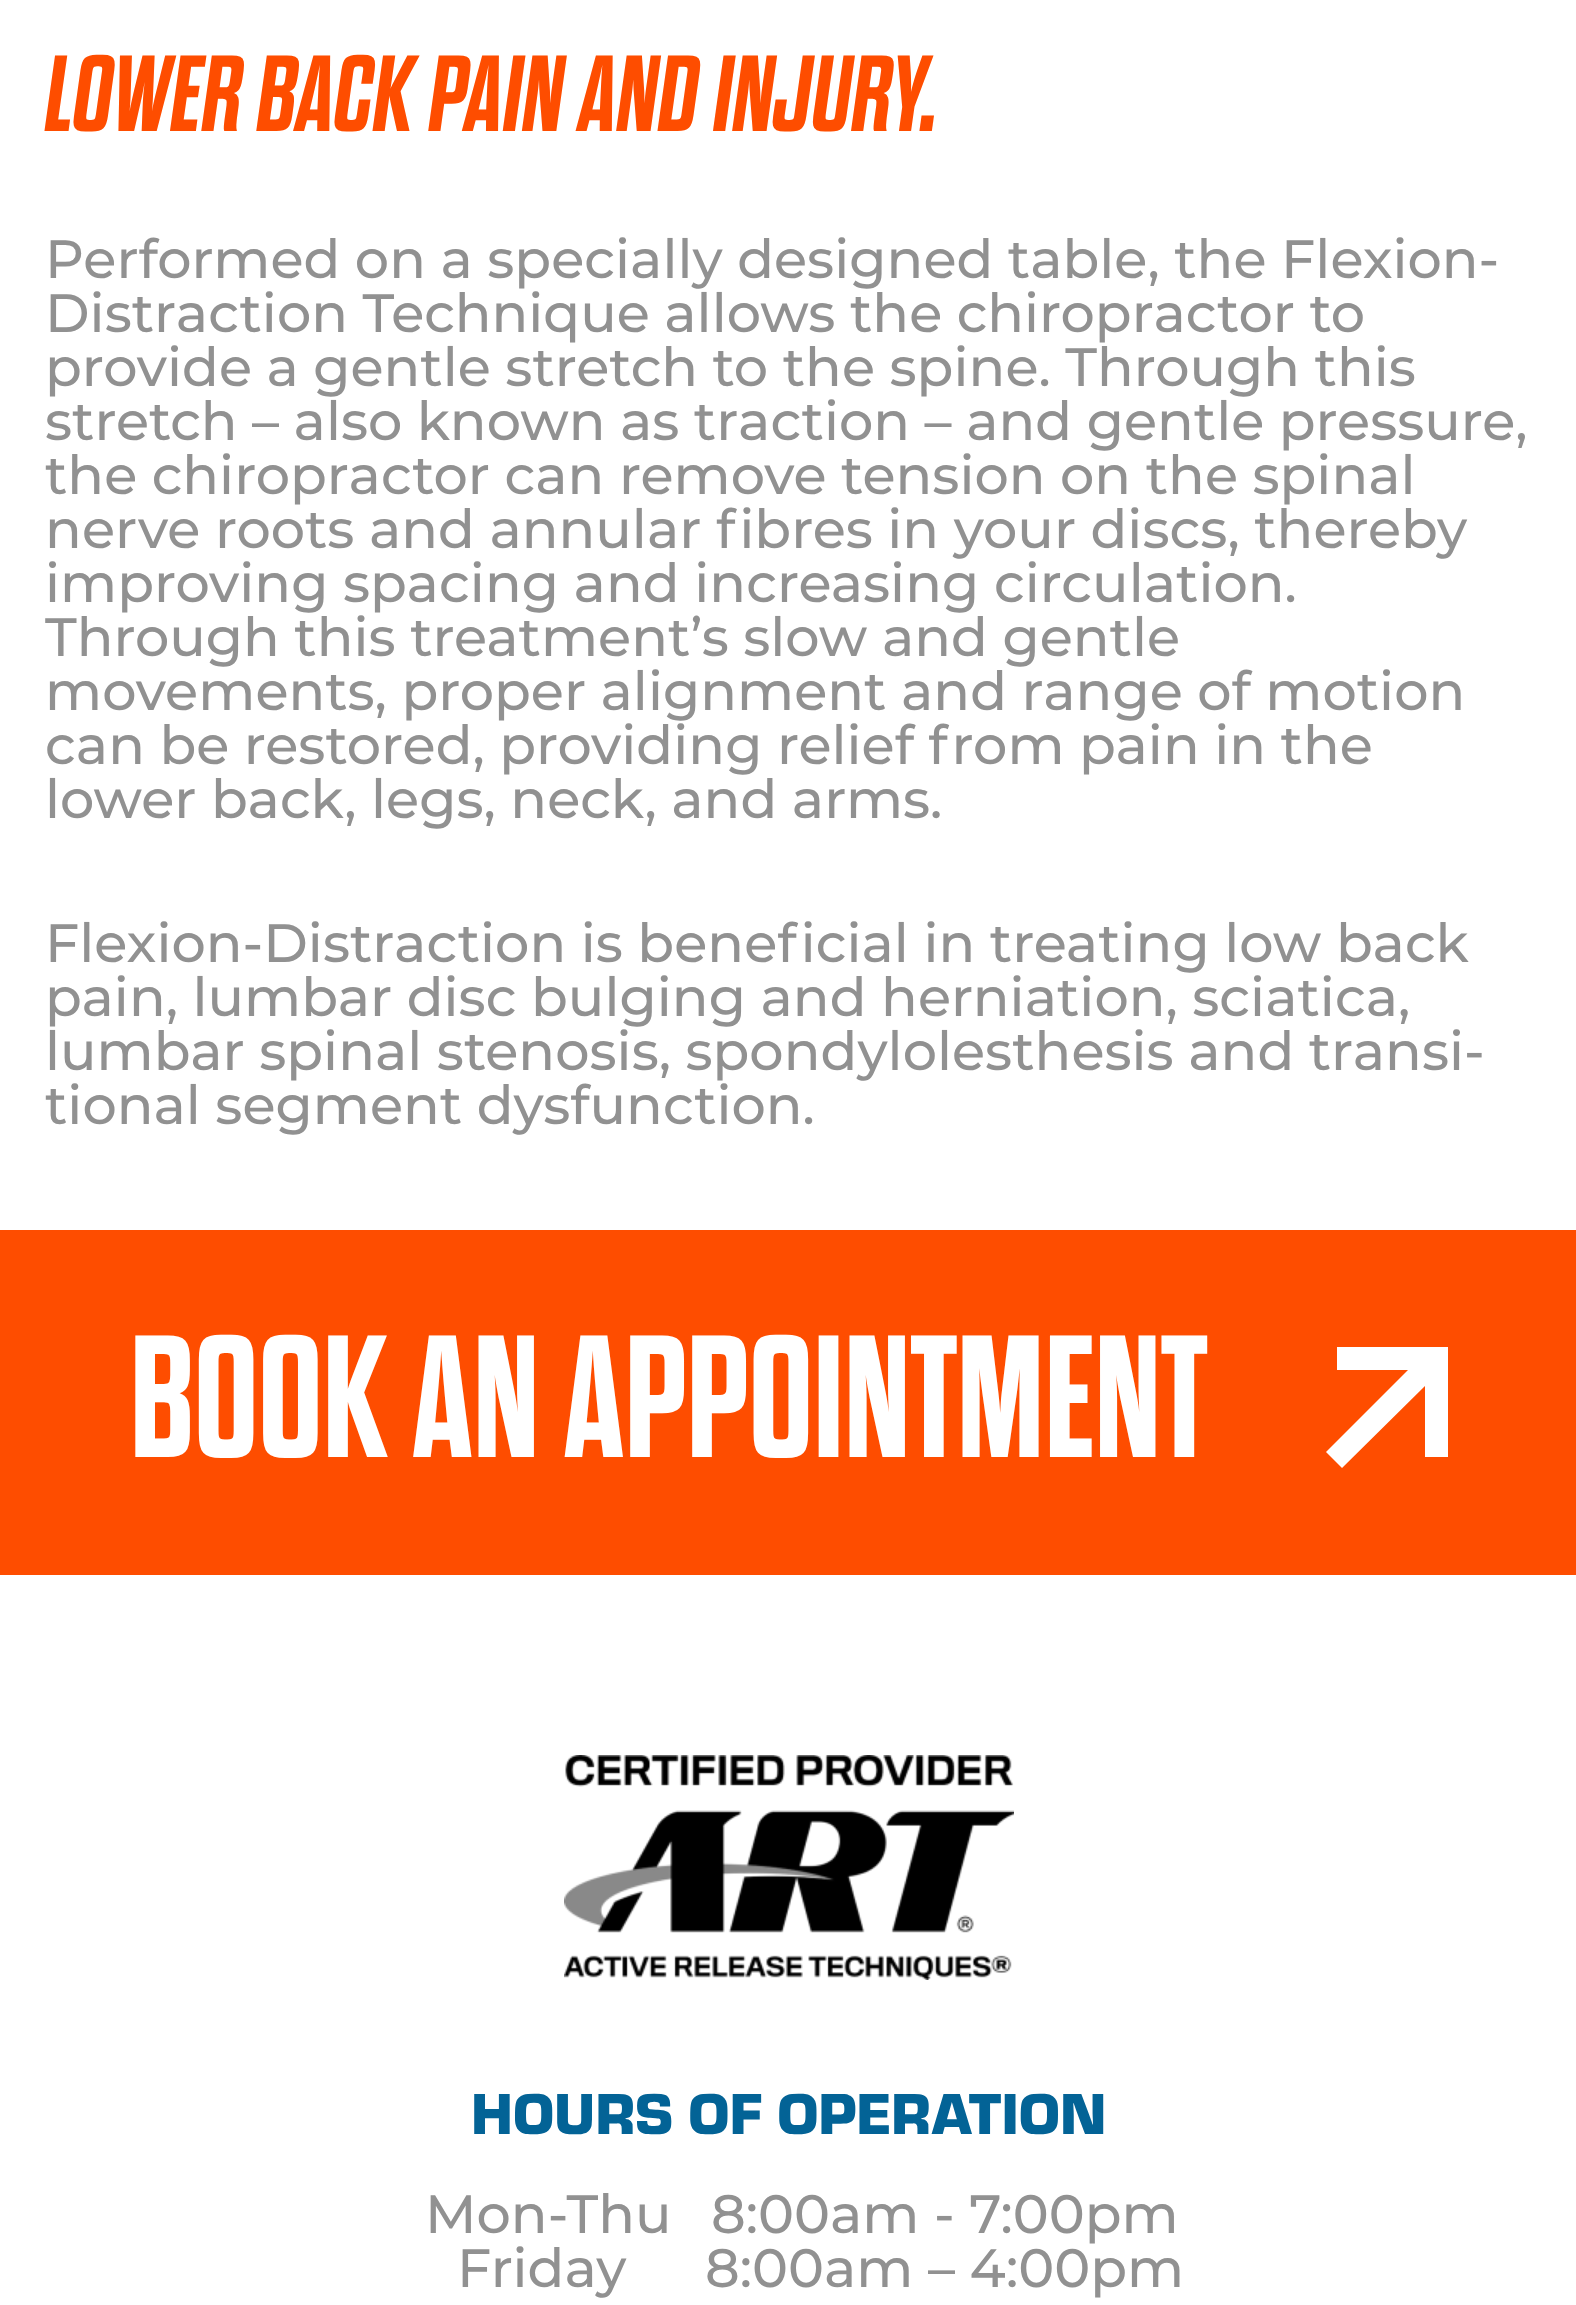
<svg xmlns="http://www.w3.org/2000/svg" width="1576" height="2305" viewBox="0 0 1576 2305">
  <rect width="100%" height="100%" fill="rgb(255,255,255)"/>
  <text x="45" y="131" font-family="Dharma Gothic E" font-size="108" font-weight="bold" font-style="italic" fill="rgb(254,77,0)">LOWER BACK PAIN AND INJURY.</text>
  <g font-family="Montserrat" font-size="54" font-weight="500" fill="rgb(145,145,145)">
    <text>
      <tspan x="45" y="278">Performed on a specially designed table, the Flexion-</tspan>
      <tspan x="45" y="332">Distraction Technique allows the chiropractor to</tspan>
      <tspan x="45" y="386">provide a gentle stretch to the spine. Through this</tspan>
      <tspan x="45" y="440">stretch – also known as traction – and gentle pressure,</tspan>
      <tspan x="45" y="494">the chiropractor can remove tension on the spinal</tspan>
      <tspan x="45" y="548">nerve roots and annular fibres in your discs, thereby</tspan>
      <tspan x="45" y="602">improving spacing and increasing circulation.</tspan>
      <tspan x="45" y="656">Through this treatment’s slow and gentle</tspan>
      <tspan x="45" y="710">movements, proper alignment and range of motion</tspan>
      <tspan x="45" y="764">can be restored, providing relief from pain in the</tspan>
      <tspan x="45" y="818">lower back, legs, neck, and arms.</tspan>
    </text>
    <text>
      <tspan x="45" y="962">Flexion-Distraction is beneficial in treating low back</tspan>
      <tspan x="45" y="1016">pain, lumbar disc bulging and herniation, sciatica,</tspan>
      <tspan x="45" y="1070">lumbar spinal stenosis, spondylolesthesis and transi-</tspan>
      <tspan x="45" y="1124">tional segment dysfunction.</tspan>
    </text>
  </g>
  <rect x="0" y="1230" width="1576" height="345" fill="rgb(254,77,0)"/>
  <text x="130" y="1457" font-family="Dharma Gothic E" font-size="173.5" font-weight="bold" fill="rgb(255,255,255)">BOOK AN APPOINTMENT</text>
  <path d="M1337 1347V1370H1408L1326 1452L1342 1468L1425 1386V1457H1448V1347Z" fill="rgb(255,255,255)"/>
  <image x="564" y="1755" width="450" height="225" href="pic1.png"/>
  <text x="471" y="2134" font-family="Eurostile" font-size="60" font-weight="900" fill="rgb(3,99,150)">HOURS OF OPERATION</text>
  <g font-family="Montserrat" font-size="54" font-weight="500" fill="rgb(145,145,145)">
    <text x="425" y="2233">Mon-Thu</text>
    <text x="711" y="2233">8:00am - 7:00pm</text>
    <text x="457" y="2287">Friday</text>
    <text x="705" y="2287">8:00am – 4:00pm</text>
  </g>
</svg>
